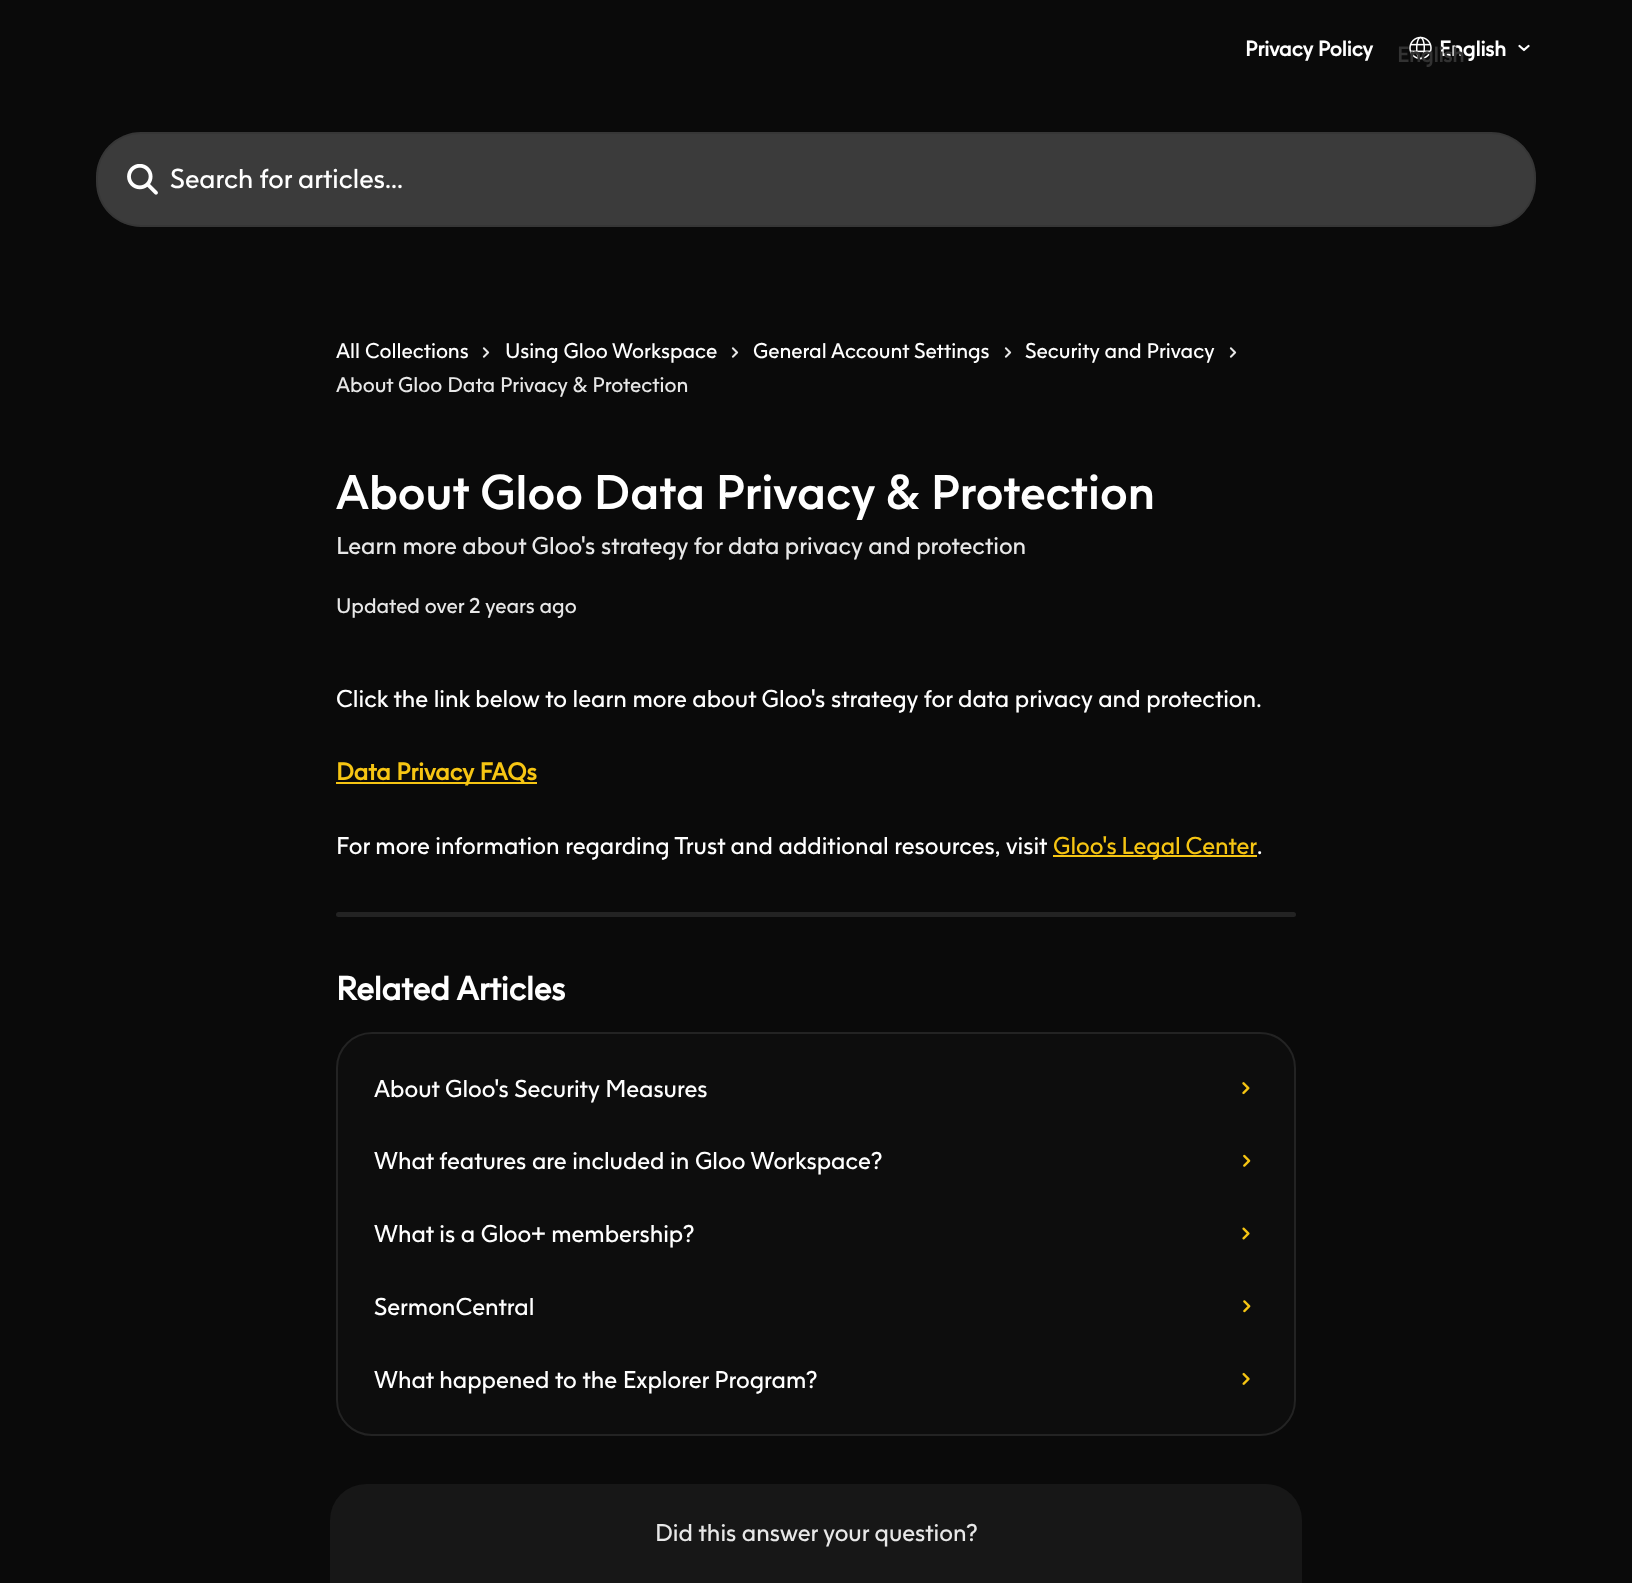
<svg xmlns="http://www.w3.org/2000/svg" width="1632" height="1583" viewBox="0 0 1632 1583">
  <rect width="100%" height="100%" fill="rgb(10,10,10)"/>
  <text x="1245" y="56" font-family="'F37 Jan'" font-size="21" font-weight="bold" fill="rgb(255,255,255)">Privacy Policy</text>
  <image x="1409" y="36" width="23" height="24" href="pic1.png"/>
  <text x="1439" y="56" font-family="'F37 Jan'" font-size="21" font-weight="bold" fill="rgb(255,255,255)">English</text>
  <text x="1397" y="62" font-family="'F37 Jan'" font-size="21" font-weight="bold" fill="rgb(50,50,50)">English</text>
  <path d="M1519.5 46L1524 50L1528.5 46" fill="none" stroke="rgb(255,255,255)" stroke-width="2.2" stroke-linecap="round" stroke-linejoin="round"/>
  <rect x="96" y="132" width="1440" height="95" rx="45" fill="rgb(59,59,59)"/>
  <rect x="97" y="133" width="1438" height="93" rx="44" fill="none" stroke="rgba(0,0,0,0.08)" stroke-width="2"/>
  <image x="127" y="164" width="31" height="31" href="pic2.png"/>
  <text x="170" y="188" font-family="'F37 Jan'" font-size="27" fill="rgb(255,255,255)">Search for articles...</text>
  <text x="336" y="358" font-family="'F37 Jan'" font-size="21" fill="rgb(255,255,255)">All Collections</text>
  <image x="482" y="347" width="8" height="11" href="pic3.png"/>
  <text x="505" y="358" font-family="'F37 Jan'" font-size="21" fill="rgb(255,255,255)">Using Gloo Workspace</text>
  <image x="731" y="347" width="8" height="11" href="pic3.png"/>
  <text x="753" y="358" font-family="'F37 Jan'" font-size="21" fill="rgb(255,255,255)">General Account Settings</text>
  <image x="1004" y="347" width="8" height="11" href="pic3.png"/>
  <text x="1025" y="358" font-family="'F37 Jan'" font-size="21" fill="rgb(255,255,255)">Security and Privacy</text>
  <image x="1229" y="347" width="8" height="11" href="pic3.png"/>
  <text x="336" y="392" font-family="'F37 Jan'" font-size="21" fill="rgb(232,232,232)">About Gloo Data Privacy &amp; Protection</text>
  <text x="336" y="509" font-family="'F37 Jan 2'" font-size="48" font-weight="bold" fill="rgb(255,255,255)">About Gloo Data Privacy &amp; Protection</text>
  <text x="336" y="554" font-family="'F37 Jan'" font-size="24" fill="rgb(232,232,232)">Learn more about Gloo's strategy for data privacy and protection</text>
  <text x="336" y="613" font-family="'F37 Jan'" font-size="21" fill="rgb(232,232,232)">Updated over 2 years ago</text>
  <text x="336" y="707" font-family="'F37 Jan'" font-size="24" fill="rgb(255,255,255)">Click the link below to learn more about Gloo's strategy for data privacy and protection.</text>
  <rect x="336" y="782" width="201" height="2" fill="rgb(246,197,19)"/>
  <text x="336" y="780" font-family="'F37 Jan'" font-size="24" font-weight="bold" fill="rgb(246,197,19)">Data Privacy FAQs</text>
  <text x="336" y="854" font-family="'F37 Jan'" font-size="24" fill="rgb(255,255,255)">For more information regarding Trust and additional resources, visit</text>
  <rect x="1053" y="855" width="204" height="2" fill="rgb(246,197,19)"/>
  <text x="1053" y="854" word-spacing="-1" font-family="'F37 Jan'" font-size="24" fill="rgb(246,197,19)">Gloo's Legal Center</text>
  <text x="1257" y="854" font-family="'F37 Jan'" font-size="24" fill="rgb(255,255,255)">.</text>
  <rect x="336" y="912" width="960" height="5" rx="2.5" fill="rgb(35,35,35)"/>
  <text x="336" y="1000" font-family="'F37 Jan'" font-size="33" font-weight="bold" fill="rgb(255,255,255)">Related Articles</text>
  <rect x="337" y="1033" width="958" height="402" rx="35" fill="rgb(13,13,13)" stroke="rgb(35,35,35)" stroke-width="2"/>
  <text x="374" y="1097" font-family="'F37 Jan'" font-size="24" fill="rgb(255,255,255)">About Gloo's Security Measures</text>
  <image x="1242" y="1082" width="8" height="13" href="pic4.png"/>
  <text x="374" y="1169" font-family="'F37 Jan'" font-size="24" fill="rgb(255,255,255)">What features are included in Gloo Workspace?</text>
  <image x="1243" y="1154" width="8" height="13" href="pic5.png"/>
  <text x="374" y="1242" font-family="'F37 Jan'" font-size="24" fill="rgb(255,255,255)">What is a Gloo+ membership?</text>
  <image x="1242" y="1227" width="8" height="13" href="pic6.png"/>
  <text x="374" y="1315" font-family="'F37 Jan'" font-size="24" fill="rgb(255,255,255)">SermonCentral</text>
  <image x="1243" y="1300" width="8" height="13" href="pic7.png"/>
  <text x="374" y="1388" font-family="'F37 Jan'" font-size="24" fill="rgb(255,255,255)">What happened to the Explorer Program?</text>
  <image x="1242" y="1372" width="8" height="13" href="pic8.png"/>
  <rect x="330" y="1484" width="972" height="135" rx="36" fill="rgb(23,23,23)"/>
  <text x="655" y="1541" font-family="'F37 Jan'" font-size="24" fill="rgb(232,232,232)">Did this answer your question?</text>
</svg>
